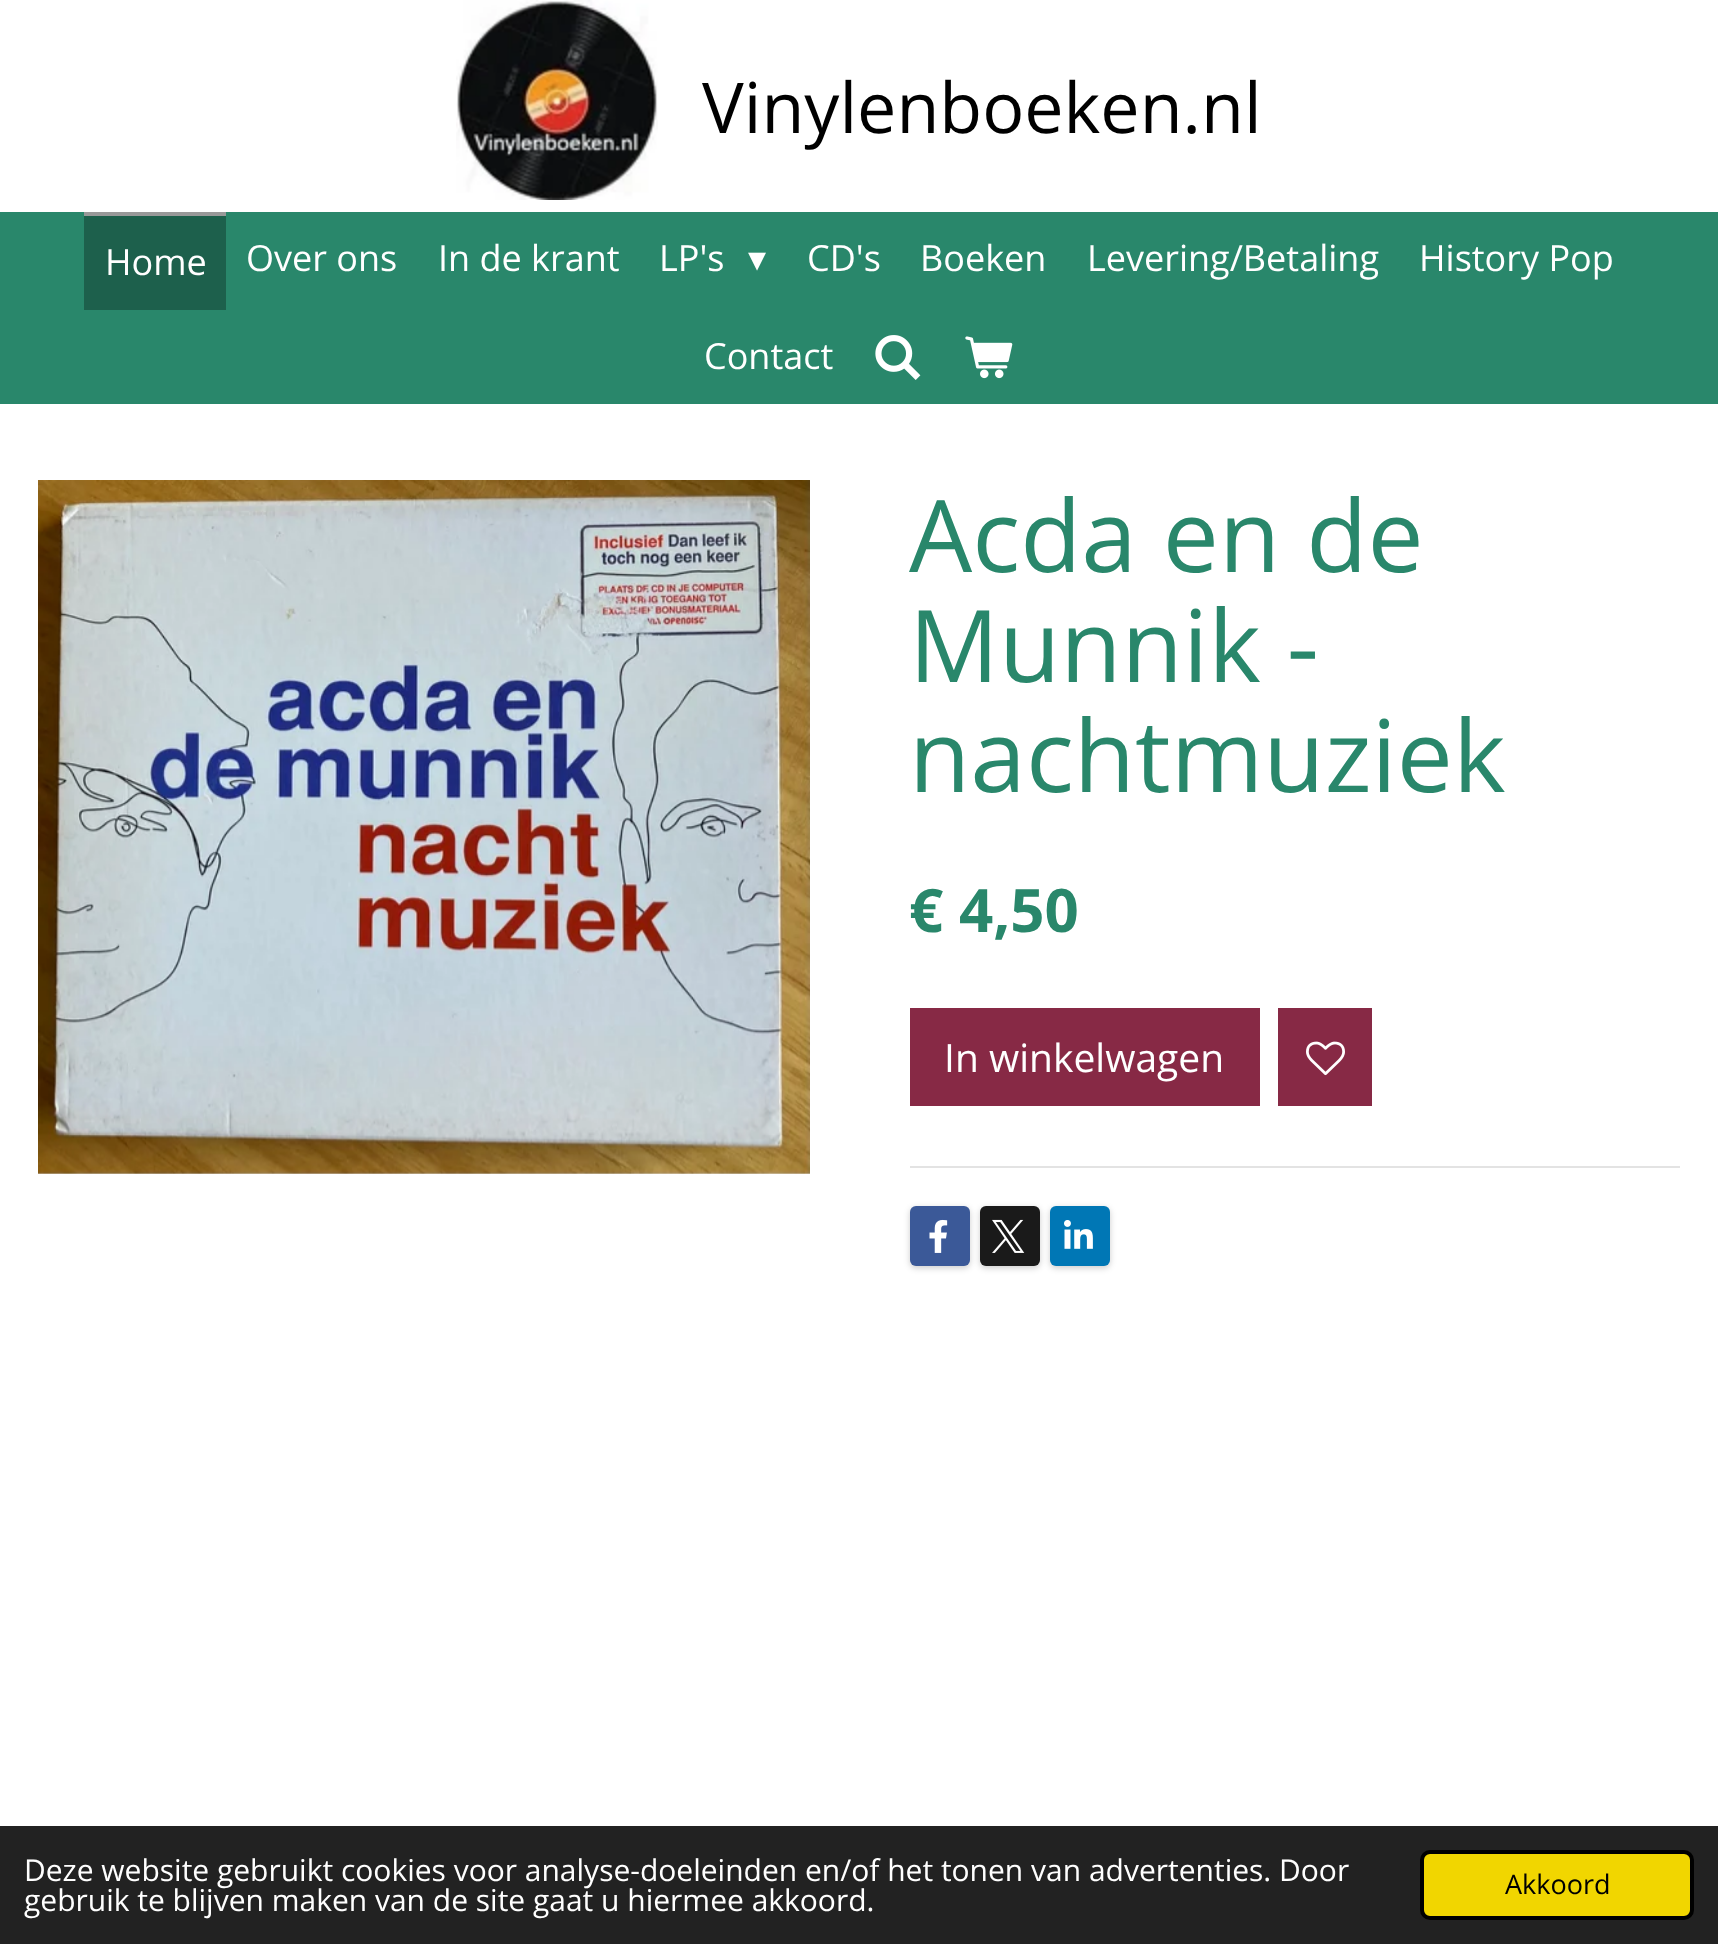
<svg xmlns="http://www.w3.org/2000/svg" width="1718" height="1944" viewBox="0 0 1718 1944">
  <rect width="100%" height="100%" fill="rgb(255,255,255)"/>
  <image x="456" y="0" width="202" height="200" href="pic1.png"/>
  <text x="702" y="133" font-family="Open Sans" font-size="70" fill="rgb(0,0,0)">Vinylenboeken.nl</text>
  <rect x="0" y="212" width="1718" height="192" fill="rgb(41,135,107)"/>
  <rect x="84" y="216" width="142" height="94" fill="rgb(29,96,76)"/>
  <rect x="84" y="212" width="142" height="4" fill="rgb(153,153,153)"/>
  <g font-family="Open Sans" font-size="36" fill="rgb(255,255,255)">
    <text x="105" y="275">Home</text>
    <text x="246" y="271">Over ons</text>
    <text x="438" y="271">In de krant</text>
    <text x="659" y="271">LP's</text>
  </g>
  <text x="748" y="271" font-family="DejaVu Sans" font-size="36" fill="rgb(255,255,255)">▾</text>
  <g font-family="Open Sans" font-size="36" fill="rgb(255,255,255)">
    <text x="807" y="271">CD's</text>
    <text x="920" y="271">Boeken</text>
    <text x="1087" y="271">Levering/Betaling</text>
    <text x="1419" y="271">History Pop</text>
    <text x="704" y="369">Contact</text>
  </g>
  <image x="875" y="335" width="46" height="45" href="pic2.png"/>
  <image x="965" y="336" width="48" height="43" href="pic3.png"/>
  <image x="38" y="480" width="772" height="694" href="pic4.png"/>
  <g font-family="Open Sans" font-size="100" fill="rgb(41,135,107)">
    <text>
      <tspan x="909" y="572">Acda en de</tspan>
      <tspan x="909" y="682">Munnik -</tspan>
      <tspan x="909" y="792">nachtmuziek</tspan>
    </text>
  </g>
  <text x="909" y="932" font-family="Open Sans" font-size="60" font-weight="bold" fill="rgb(41,135,107)">€ 4,50</text>
  <rect x="910" y="1008" width="350" height="98" fill="rgb(135,41,69)"/>
  <text x="944" y="1072" font-family="Open Sans" font-size="39" fill="rgb(255,255,255)">In winkelwagen</text>
  <rect x="1278" y="1008" width="94" height="98" fill="rgb(135,41,69)"/>
  <image x="1306" y="1041" width="39" height="35" href="pic5.png"/>
  <rect x="910" y="1166" width="770" height="2" fill="rgb(227,227,227)"/>
  <rect x="910" y="1208" width="60" height="60" rx="6" fill="rgba(0,0,0,0.2)" filter="blur(3px)"/>
  <rect x="910" y="1206" width="60" height="60" rx="6" fill="rgb(59,89,152)"/>
  <image x="929" y="1219" width="19" height="34" href="pic6.png"/>
  <rect x="980" y="1208" width="60" height="60" rx="6" fill="rgba(0,0,0,0.2)" filter="blur(3px)"/>
  <rect x="980" y="1206" width="60" height="60" rx="6" fill="rgb(26,26,26)"/>
  <image x="992" y="1219" width="33" height="34" href="pic7.png"/>
  <rect x="1050" y="1208" width="60" height="60" rx="6" fill="rgba(0,0,0,0.2)" filter="blur(3px)"/>
  <rect x="1050" y="1206" width="60" height="60" rx="6" fill="rgb(0,119,181)"/>
  <image x="1064" y="1220" width="29" height="29" href="pic8.png"/>
  <rect x="0" y="1826" width="1718" height="118" fill="rgb(34,34,34)"/>
  <g font-family="Open Sans" font-size="30" fill="rgb(255,255,255)">
    <text>
      <tspan x="24" y="1881">Deze website gebruikt cookies voor analyse-doeleinden en/of het tonen van advertenties. Door</tspan>
      <tspan x="24" y="1911">gebruik te blijven maken van de site gaat u hiermee akkoord.</tspan>
    </text>
  </g>
  <rect x="1422" y="1852" width="270" height="66" rx="8" fill="rgb(241,214,0)" stroke="rgb(0,0,0)" stroke-width="4"/>
  <text x="1505" y="1894" font-family="Open Sans" font-size="27" fill="rgb(0,0,0)">Akkoord</text>
</svg>
